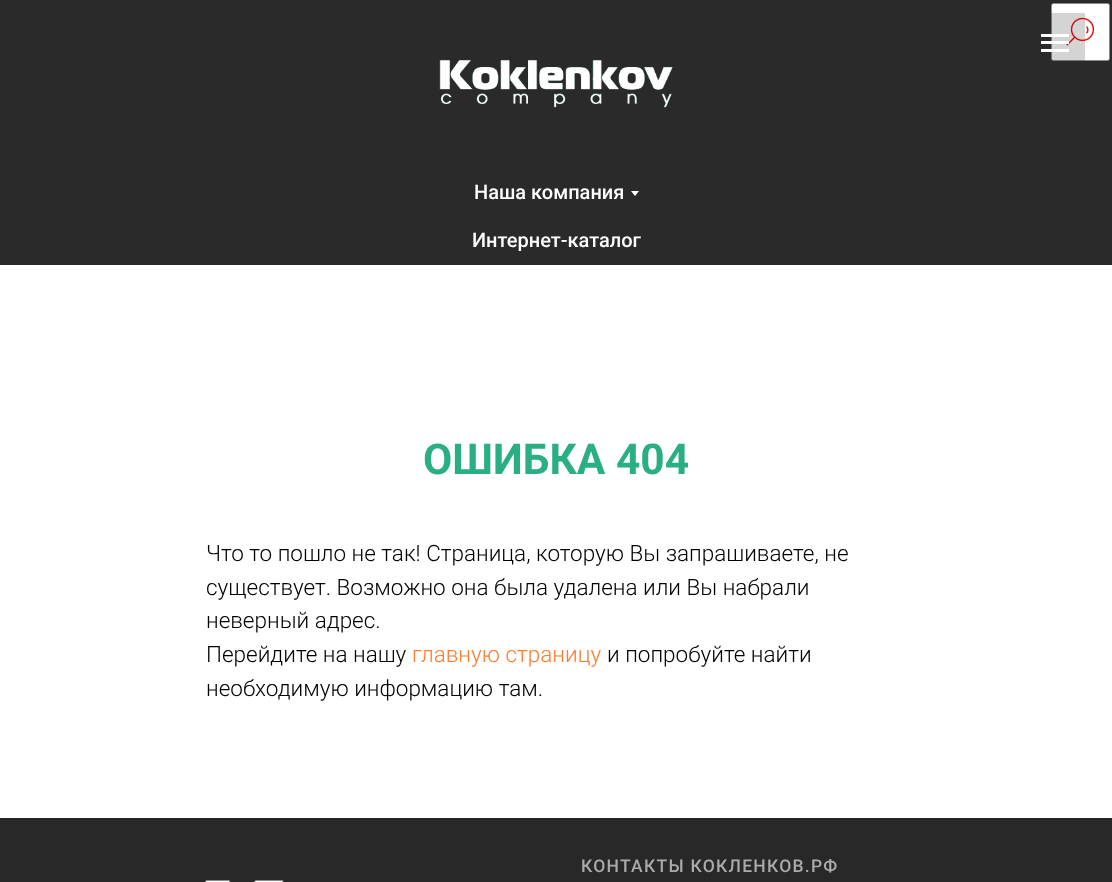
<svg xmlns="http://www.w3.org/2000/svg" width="1112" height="882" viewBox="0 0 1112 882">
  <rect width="100%" height="100%" fill="rgb(255,255,255)"/>
  <rect x="0" y="0" width="1112" height="265" fill="rgb(42,42,42)"/>
  <rect x="1051" y="3" width="59" height="58" rx="2.5" fill="rgba(0,0,0,0.6)" filter="blur(0.5px)"/>
  <rect x="1051.5" y="3.5" width="58" height="57" rx="2" fill="rgb(255,255,255)" stroke="rgb(140,140,140)"/>
  <image x="1066" y="17" width="29" height="29" href="pic1.png"/>
  <rect x="1051" y="13" width="34" height="48" fill="rgba(42,42,42,0.2)"/>
  <rect x="1041" y="34" width="28" height="3" fill="rgb(255,255,255)"/>
  <rect x="1041" y="41" width="28" height="3" fill="rgb(255,255,255)"/>
  <rect x="1041" y="49" width="28" height="3" fill="rgb(255,255,255)"/>
  <image x="439" y="59" width="234" height="49" href="pic2.png"/>
  <text x="474" y="199" font-family="Roboto" font-size="20" font-weight="500" fill="rgb(255,255,255)">Наша компания</text>
  <path d="M631 191H639L635 196Z" fill="rgb(255,255,255)"/>
  <text x="472" y="247" font-family="Roboto" font-size="20" font-weight="500" fill="rgb(255,255,255)">Интернет-каталог</text>
  <text x="423" y="474" font-family="Roboto" font-size="42.5" font-weight="bold" fill="rgb(42,175,130)">ОШИБКА 404</text>
  <g font-family="Roboto" font-size="22.5" font-weight="300" fill="rgb(0,0,0)">
    <text>
      <tspan x="206" y="561">Что то пошло не так! Страница, которую Вы запрашиваете, не</tspan>
      <tspan x="206" y="595">существует. Возможно она была удалена или Вы набрали</tspan>
      <tspan x="206" y="628">неверный адрес.</tspan>
      <tspan x="206" y="662">Перейдите на нашу</tspan>
    </text>
  </g>
  <text x="412" y="662" font-family="Roboto" font-size="22.5" font-weight="300" fill="rgb(255,122,47)">главную страницу</text>
  <g font-family="Roboto" font-size="22.5" font-weight="300" fill="rgb(0,0,0)">
    <text x="607" y="662">и попробуйте найти</text>
    <text x="206" y="696">необходимую информацию там.</text>
  </g>
  <rect x="0" y="818" width="1112" height="64" fill="rgb(40,40,40)"/>
  <text x="581" y="872" font-family="Roboto" font-size="17.5" font-weight="500" letter-spacing="1.25" fill="rgb(173,170,170)">КОНТАКТЫ КОКЛЕНКОВ.РФ</text>
  <image x="205" y="880" width="79" height="2" href="pic3.png"/>
</svg>
